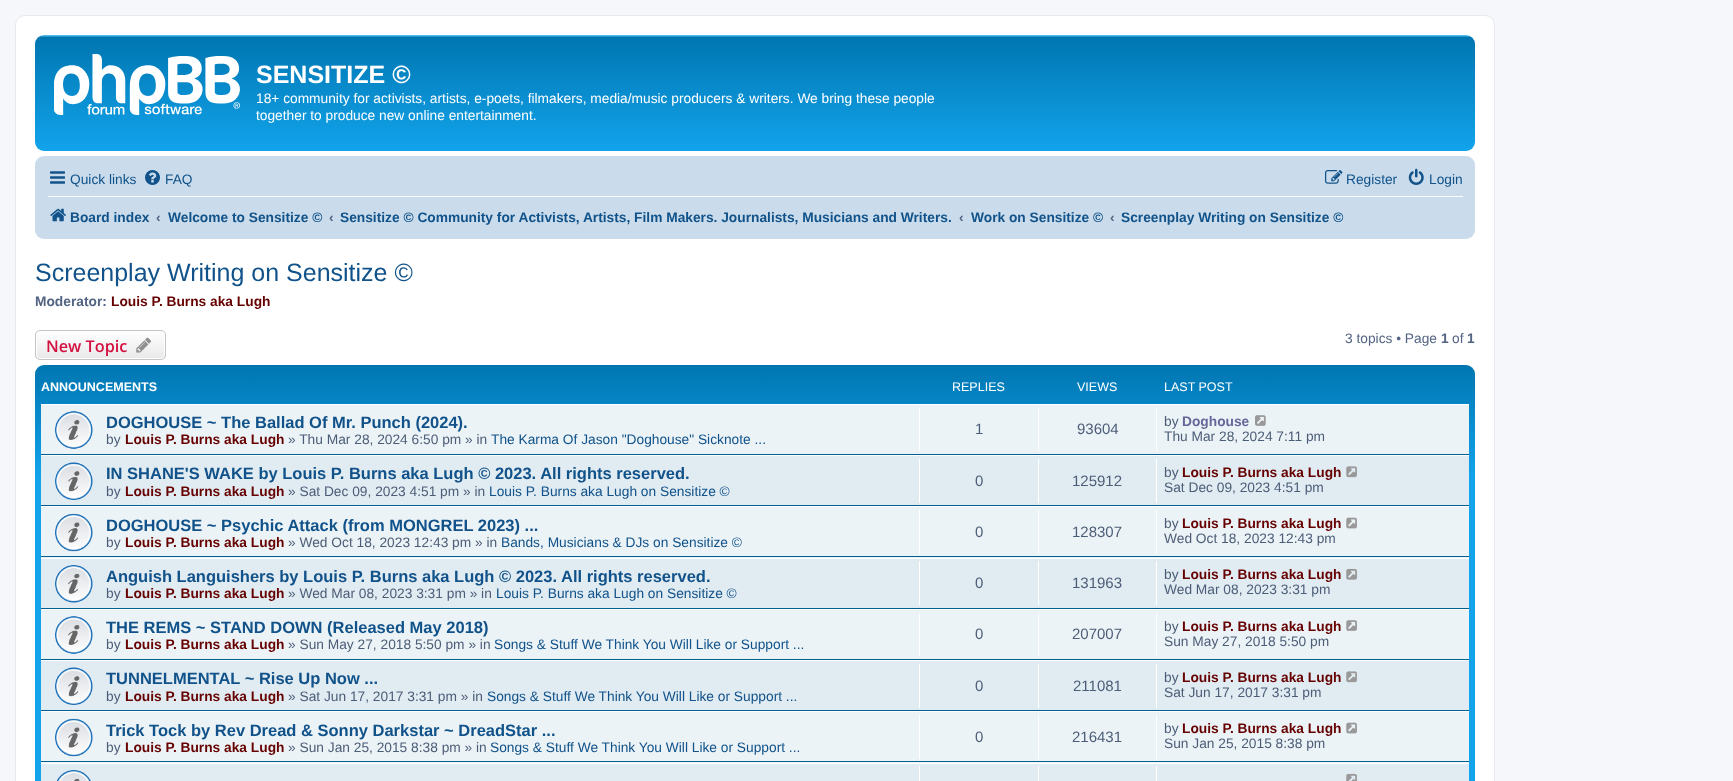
<svg xmlns="http://www.w3.org/2000/svg" width="1733" height="781" viewBox="0 0 1733 781">
  <defs>
    <linearGradient id="g1" gradientUnits="userSpaceOnUse" x1="755" y1="35" x2="755" y2="151"><stop offset="0" stop-color="rgb(106,206,255)"/><stop offset="0.02" stop-color="rgb(0,118,177)"/><stop offset="0.99" stop-color="rgb(18,163,235)"/><stop offset="1" stop-color="rgb(18,163,235)"/></linearGradient>
    <clipPath id="clip1"><rect x="35" y="330" width="131" height="30" rx="5"/></clipPath>
    <linearGradient id="g2" gradientUnits="userSpaceOnUse" x1="101" y1="331" x2="101" y2="359"><stop offset="0" stop-color="rgb(255,255,255)"/><stop offset="1" stop-color="rgb(233,233,233)"/></linearGradient>
    <linearGradient id="g3" gradientUnits="userSpaceOnUse" x1="755" y1="365" x2="755" y2="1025"><stop offset="0" stop-color="rgb(106,206,255)"/><stop offset="0" stop-color="rgb(0,118,177)"/><stop offset="0.17" stop-color="rgb(18,163,235)"/><stop offset="1" stop-color="rgb(18,163,235)"/></linearGradient>
  </defs>
  <rect width="100%" height="100%" fill="rgb(245,247,250)"/>
  <rect x="15.5" y="15.5" width="1479" height="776" rx="9.5" fill="rgb(255,255,255)" stroke="rgb(230,233,237)"/>
  <rect x="35" y="35" width="1440" height="116" rx="9" fill="url(#g1)"/>
  <image x="54" y="54" width="186" height="61" href="pic1.png"/>
  <text x="256" y="83" font-family="Liberation Sans" font-size="25" font-weight="bold" fill="rgb(255,255,255)">SENSITIZE ©</text>
  <g font-family="Liberation Sans" font-size="13.75" fill="rgb(255,255,255)">
    <text>
      <tspan x="256" y="103">18+ community for activists, artists, e-poets, filmakers, media/music producers &amp; writers. We bring these people</tspan>
      <tspan x="256" y="120">together to produce new online entertainment.</tspan>
    </text>
  </g>
  <rect x="35" y="156" width="1440" height="83" rx="9" fill="rgb(202,220,235)"/>
  <image x="50" y="171" width="15" height="13" href="pic2.png"/>
  <text x="70" y="184" font-family="Liberation Sans" font-size="13.75" fill="rgb(16,82,137)">Quick links</text>
  <image x="145" y="170" width="15" height="15" href="pic3.png"/>
  <text x="165" y="184" font-family="Liberation Sans" font-size="13.75" fill="rgb(16,82,137)">FAQ</text>
  <image x="1325" y="170" width="18" height="14" href="pic4.png"/>
  <text x="1346" y="184" font-family="Liberation Sans" font-size="13.75" fill="rgb(16,82,137)">Register</text>
  <image x="1408" y="168" width="16" height="17" href="pic5.png"/>
  <text x="1429" y="184" font-family="Liberation Sans" font-size="13.75" fill="rgb(16,82,137)">Login</text>
  <rect x="48" y="196" width="1415" height="1" fill="rgb(255,255,255)"/>
  <image x="50" y="208" width="16" height="14" href="pic6.png"/>
  <text x="70" y="222" font-family="Liberation Sans" font-size="13.75" font-weight="bold" fill="rgb(16,82,137)">Board index</text>
  <text x="156" y="222" font-family="Liberation Sans" font-size="13.75" font-weight="bold" fill="rgb(83,100,130)">‹</text>
  <text x="168" y="222" font-family="Liberation Sans" font-size="13.75" font-weight="bold" fill="rgb(16,82,137)">Welcome to Sensitize ©</text>
  <text x="329" y="222" font-family="Liberation Sans" font-size="13.75" font-weight="bold" fill="rgb(83,100,130)">‹</text>
  <text x="340" y="222" font-family="Liberation Sans" font-size="13.75" font-weight="bold" fill="rgb(16,82,137)">Sensitize © Community for Activists, Artists, Film Makers. Journalists, Musicians and Writers.</text>
  <text x="959" y="222" font-family="Liberation Sans" font-size="13.75" font-weight="bold" fill="rgb(83,100,130)">‹</text>
  <text x="971" y="222" font-family="Liberation Sans" font-size="13.75" font-weight="bold" fill="rgb(16,82,137)">Work on Sensitize ©</text>
  <text x="1110" y="222" font-family="Liberation Sans" font-size="13.75" font-weight="bold" fill="rgb(83,100,130)">‹</text>
  <text x="1121" y="222" font-family="Liberation Sans" font-size="13.75" font-weight="bold" fill="rgb(16,82,137)">Screenplay Writing on Sensitize ©</text>
  <text x="35" y="281" font-family="Liberation Sans" font-size="25" fill="rgb(16,82,137)">Screenplay Writing on Sensitize ©</text>
  <text x="35" y="306" font-family="Liberation Sans" font-size="13.75" font-weight="bold" fill="rgb(83,100,130)">Moderator:</text>
  <text x="111" y="306" font-family="Liberation Sans" font-size="13.75" font-weight="bold" fill="rgb(102,0,0)">Louis P. Burns aka Lugh</text>
  <g clip-path="url(#clip1)">
    <rect x="35" y="331" width="131" height="28" fill="url(#g2)"/>
  </g>
  <rect x="36.5" y="331.5" width="128" height="27" rx="3.5" fill="none" stroke="rgb(255,255,255)"/>
  <rect x="35.5" y="330.5" width="130" height="29" rx="4.5" fill="none" stroke="rgb(199,195,191)"/>
  <text x="46" y="352" font-family="Open Sans" font-size="16.25" font-weight="600" fill="rgb(211,17,65)">New Topic</text>
  <image x="136" y="337" width="15" height="16" href="pic7.png"/>
  <text x="1345" y="343" font-family="Liberation Sans" font-size="13.75" fill="rgb(83,100,130)">3 topics • Page</text>
  <text x="1441" y="343" font-family="Liberation Sans" font-size="13.75" font-weight="bold" fill="rgb(83,100,130)">1</text>
  <text x="1452" y="343" font-family="Liberation Sans" font-size="13.75" fill="rgb(83,100,130)">of</text>
  <text x="1467" y="343" font-family="Liberation Sans" font-size="13.75" font-weight="bold" fill="rgb(83,100,130)">1</text>
  <rect x="35" y="365" width="1440" height="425" rx="9" fill="url(#g3)"/>
  <text x="41" y="391" font-family="Liberation Sans" font-size="12.5" font-weight="bold" fill="rgb(255,255,255)">ANNOUNCEMENTS</text>
  <g font-family="Liberation Sans" font-size="12.5" fill="rgb(255,255,255)">
    <text x="952" y="391">REPLIES</text>
    <text x="1077" y="391">VIEWS</text>
    <text x="1164" y="391">LAST POST</text>
  </g>
  <rect x="41" y="405" width="1428" height="49" fill="rgb(236,243,247)"/>
  <rect x="41" y="404" width="1428" height="1" fill="rgb(255,255,255)"/>
  <rect x="41" y="454" width="1428" height="1" fill="rgb(0,96,143)"/>
  <image x="55" y="411" width="38" height="38" href="pic8.png"/>
  <text x="106" y="428" font-family="Liberation Sans" font-size="16.5" font-weight="bold" fill="rgb(16,82,137)">DOGHOUSE ~ The Ballad Of Mr. Punch (2024).</text>
  <text x="106" y="444" font-family="Liberation Sans" font-size="13.75" fill="rgb(76,93,119)">by</text>
  <text x="125" y="444" font-family="Liberation Sans" font-size="13.75" font-weight="bold" fill="rgb(102,0,0)">Louis P. Burns aka Lugh</text>
  <text x="288" y="444" font-family="Liberation Sans" font-size="13.75" fill="rgb(76,93,119)">» Thu Mar 28, 2024 6:50 pm » in</text>
  <text x="491" y="444" font-family="Liberation Sans" font-size="13.75" fill="rgb(16,82,137)">The Karma Of Jason "Doghouse" Sicknote ...</text>
  <rect x="919" y="408" width="1" height="43" fill="rgb(255,255,255)"/>
  <text x="975" y="434" font-family="Liberation Sans" font-size="15" fill="rgb(76,93,119)">1</text>
  <rect x="1038" y="408" width="1" height="43" fill="rgb(255,255,255)"/>
  <text x="1077" y="434" font-family="Liberation Sans" font-size="15" fill="rgb(76,93,119)">93604</text>
  <rect x="1156" y="408" width="1" height="43" fill="rgb(255,255,255)"/>
  <text x="1164" y="426" font-family="Liberation Sans" font-size="13.75" fill="rgb(76,93,119)">by</text>
  <text x="1182" y="426" font-family="Liberation Sans" font-size="13.75" font-weight="bold" fill="rgb(102,102,153)">Doghouse</text>
  <image x="1255" y="415" width="11" height="11" href="pic9.png"/>
  <text x="1164" y="441" font-family="Liberation Sans" font-size="13.75" fill="rgb(76,93,119)">Thu Mar 28, 2024 7:11 pm</text>
  <rect x="41" y="456" width="1428" height="49" fill="rgb(225,235,242)"/>
  <rect x="41" y="455" width="1428" height="1" fill="rgb(255,255,255)"/>
  <rect x="41" y="505" width="1428" height="1" fill="rgb(0,96,143)"/>
  <image x="55" y="462" width="38" height="38" href="pic10.png"/>
  <text x="106" y="479" font-family="Liberation Sans" font-size="16.5" font-weight="bold" fill="rgb(16,82,137)">IN SHANE'S WAKE by Louis P. Burns aka Lugh © 2023. All rights reserved.</text>
  <text x="106" y="496" font-family="Liberation Sans" font-size="13.75" fill="rgb(76,93,119)">by</text>
  <text x="125" y="496" font-family="Liberation Sans" font-size="13.75" font-weight="bold" fill="rgb(102,0,0)">Louis P. Burns aka Lugh</text>
  <text x="288" y="496" font-family="Liberation Sans" font-size="13.75" fill="rgb(76,93,119)">» Sat Dec 09, 2023 4:51 pm » in</text>
  <text x="489" y="496" font-family="Liberation Sans" font-size="13.75" fill="rgb(16,82,137)">Louis P. Burns aka Lugh on Sensitize ©</text>
  <rect x="919" y="459" width="1" height="44" fill="rgb(255,255,255)"/>
  <text x="975" y="486" font-family="Liberation Sans" font-size="15" fill="rgb(76,93,119)">0</text>
  <rect x="1038" y="459" width="1" height="44" fill="rgb(255,255,255)"/>
  <text x="1072" y="486" font-family="Liberation Sans" font-size="15" fill="rgb(76,93,119)">125912</text>
  <rect x="1156" y="459" width="1" height="44" fill="rgb(255,255,255)"/>
  <text x="1164" y="477" font-family="Liberation Sans" font-size="13.75" fill="rgb(76,93,119)">by</text>
  <text x="1182" y="477" font-family="Liberation Sans" font-size="13.75" font-weight="bold" fill="rgb(102,0,0)">Louis P. Burns aka Lugh</text>
  <image x="1346" y="466" width="11" height="12" href="pic11.png"/>
  <text x="1164" y="492" font-family="Liberation Sans" font-size="13.75" fill="rgb(76,93,119)">Sat Dec 09, 2023 4:51 pm</text>
  <rect x="41" y="507" width="1428" height="51" fill="rgb(236,243,247)"/>
  <rect x="41" y="506" width="1428" height="1" fill="rgb(255,255,255)"/>
  <rect x="41" y="556" width="1428" height="1" fill="rgb(0,96,143)"/>
  <image x="55" y="513" width="38" height="39" href="pic12.png"/>
  <text x="106" y="531" font-family="Liberation Sans" font-size="16.5" font-weight="bold" fill="rgb(16,82,137)">DOGHOUSE ~ Psychic Attack (from MONGREL 2023) ...</text>
  <text x="106" y="547" font-family="Liberation Sans" font-size="13.75" fill="rgb(76,93,119)">by</text>
  <text x="125" y="547" font-family="Liberation Sans" font-size="13.75" font-weight="bold" fill="rgb(102,0,0)">Louis P. Burns aka Lugh</text>
  <text x="288" y="547" font-family="Liberation Sans" font-size="13.75" fill="rgb(76,93,119)">» Wed Oct 18, 2023 12:43 pm » in</text>
  <text x="501" y="547" font-family="Liberation Sans" font-size="13.75" fill="rgb(16,82,137)">Bands, Musicians &amp; DJs on Sensitize ©</text>
  <rect x="919" y="510" width="1" height="44" fill="rgb(255,255,255)"/>
  <text x="975" y="537" font-family="Liberation Sans" font-size="15" fill="rgb(76,93,119)">0</text>
  <rect x="1038" y="510" width="1" height="44" fill="rgb(255,255,255)"/>
  <text x="1072" y="537" font-family="Liberation Sans" font-size="15" fill="rgb(76,93,119)">128307</text>
  <rect x="1156" y="510" width="1" height="44" fill="rgb(255,255,255)"/>
  <text x="1164" y="528" font-family="Liberation Sans" font-size="13.75" fill="rgb(76,93,119)">by</text>
  <text x="1182" y="528" font-family="Liberation Sans" font-size="13.75" font-weight="bold" fill="rgb(102,0,0)">Louis P. Burns aka Lugh</text>
  <image x="1346" y="517" width="11" height="12" href="pic13.png"/>
  <text x="1164" y="543" font-family="Liberation Sans" font-size="13.75" fill="rgb(76,93,119)">Wed Oct 18, 2023 12:43 pm</text>
  <rect x="41" y="559" width="1428" height="49" fill="rgb(225,235,242)"/>
  <rect x="41" y="558" width="1428" height="1" fill="rgb(255,255,255)"/>
  <rect x="41" y="608" width="1428" height="1" fill="rgb(0,96,143)"/>
  <image x="55" y="565" width="38" height="38" href="pic14.png"/>
  <text x="106" y="582" font-family="Liberation Sans" font-size="16.5" font-weight="bold" fill="rgb(16,82,137)">Anguish Languishers by Louis P. Burns aka Lugh © 2023. All rights reserved.</text>
  <text x="106" y="598" font-family="Liberation Sans" font-size="13.75" fill="rgb(76,93,119)">by</text>
  <text x="125" y="598" font-family="Liberation Sans" font-size="13.75" font-weight="bold" fill="rgb(102,0,0)">Louis P. Burns aka Lugh</text>
  <text x="288" y="598" font-family="Liberation Sans" font-size="13.75" fill="rgb(76,93,119)">» Wed Mar 08, 2023 3:31 pm » in</text>
  <text x="496" y="598" font-family="Liberation Sans" font-size="13.75" fill="rgb(16,82,137)">Louis P. Burns aka Lugh on Sensitize ©</text>
  <rect x="919" y="561" width="1" height="44" fill="rgb(255,255,255)"/>
  <text x="975" y="588" font-family="Liberation Sans" font-size="15" fill="rgb(76,93,119)">0</text>
  <rect x="1038" y="561" width="1" height="44" fill="rgb(255,255,255)"/>
  <text x="1072" y="588" font-family="Liberation Sans" font-size="15" fill="rgb(76,93,119)">131963</text>
  <rect x="1156" y="561" width="1" height="44" fill="rgb(255,255,255)"/>
  <text x="1164" y="579" font-family="Liberation Sans" font-size="13.75" fill="rgb(76,93,119)">by</text>
  <text x="1182" y="579" font-family="Liberation Sans" font-size="13.75" font-weight="bold" fill="rgb(102,0,0)">Louis P. Burns aka Lugh</text>
  <image x="1346" y="568" width="11" height="12" href="pic15.png"/>
  <text x="1164" y="594" font-family="Liberation Sans" font-size="13.75" fill="rgb(76,93,119)">Wed Mar 08, 2023 3:31 pm</text>
  <rect x="41" y="610" width="1428" height="49" fill="rgb(236,243,247)"/>
  <rect x="41" y="609" width="1428" height="1" fill="rgb(255,255,255)"/>
  <rect x="41" y="659" width="1428" height="1" fill="rgb(0,96,143)"/>
  <image x="55" y="616" width="38" height="38" href="pic8.png"/>
  <text x="106" y="633" font-family="Liberation Sans" font-size="16.5" font-weight="bold" fill="rgb(16,82,137)">THE REMS ~ STAND DOWN (Released May 2018)</text>
  <text x="106" y="649" font-family="Liberation Sans" font-size="13.75" fill="rgb(76,93,119)">by</text>
  <text x="125" y="649" font-family="Liberation Sans" font-size="13.75" font-weight="bold" fill="rgb(102,0,0)">Louis P. Burns aka Lugh</text>
  <text x="288" y="649" font-family="Liberation Sans" font-size="13.75" fill="rgb(76,93,119)">» Sun May 27, 2018 5:50 pm » in</text>
  <text x="494" y="649" font-family="Liberation Sans" font-size="13.75" fill="rgb(16,82,137)">Songs &amp; Stuff We Think You Will Like or Support ...</text>
  <rect x="919" y="613" width="1" height="43" fill="rgb(255,255,255)"/>
  <text x="975" y="639" font-family="Liberation Sans" font-size="15" fill="rgb(76,93,119)">0</text>
  <rect x="1038" y="613" width="1" height="43" fill="rgb(255,255,255)"/>
  <text x="1072" y="639" font-family="Liberation Sans" font-size="15" fill="rgb(76,93,119)">207007</text>
  <rect x="1156" y="613" width="1" height="43" fill="rgb(255,255,255)"/>
  <text x="1164" y="631" font-family="Liberation Sans" font-size="13.75" fill="rgb(76,93,119)">by</text>
  <text x="1182" y="631" font-family="Liberation Sans" font-size="13.75" font-weight="bold" fill="rgb(102,0,0)">Louis P. Burns aka Lugh</text>
  <image x="1346" y="620" width="11" height="11" href="pic16.png"/>
  <text x="1164" y="646" font-family="Liberation Sans" font-size="13.75" fill="rgb(76,93,119)">Sun May 27, 2018 5:50 pm</text>
  <rect x="41" y="661" width="1428" height="49" fill="rgb(225,235,242)"/>
  <rect x="41" y="660" width="1428" height="1" fill="rgb(255,255,255)"/>
  <rect x="41" y="710" width="1428" height="1" fill="rgb(0,96,143)"/>
  <image x="55" y="667" width="38" height="38" href="pic10.png"/>
  <text x="106" y="684" font-family="Liberation Sans" font-size="16.5" font-weight="bold" fill="rgb(16,82,137)">TUNNELMENTAL ~ Rise Up Now ...</text>
  <text x="106" y="701" font-family="Liberation Sans" font-size="13.75" fill="rgb(76,93,119)">by</text>
  <text x="125" y="701" font-family="Liberation Sans" font-size="13.75" font-weight="bold" fill="rgb(102,0,0)">Louis P. Burns aka Lugh</text>
  <text x="288" y="701" font-family="Liberation Sans" font-size="13.75" fill="rgb(76,93,119)">» Sat Jun 17, 2017 3:31 pm » in</text>
  <text x="487" y="701" font-family="Liberation Sans" font-size="13.75" fill="rgb(16,82,137)">Songs &amp; Stuff We Think You Will Like or Support ...</text>
  <rect x="919" y="664" width="1" height="44" fill="rgb(255,255,255)"/>
  <text x="975" y="691" font-family="Liberation Sans" font-size="15" fill="rgb(76,93,119)">0</text>
  <rect x="1038" y="664" width="1" height="44" fill="rgb(255,255,255)"/>
  <text x="1073" y="691" font-family="Liberation Sans" font-size="15" fill="rgb(76,93,119)">211081</text>
  <rect x="1156" y="664" width="1" height="44" fill="rgb(255,255,255)"/>
  <text x="1164" y="682" font-family="Liberation Sans" font-size="13.75" fill="rgb(76,93,119)">by</text>
  <text x="1182" y="682" font-family="Liberation Sans" font-size="13.75" font-weight="bold" fill="rgb(102,0,0)">Louis P. Burns aka Lugh</text>
  <image x="1346" y="671" width="11" height="12" href="pic11.png"/>
  <text x="1164" y="697" font-family="Liberation Sans" font-size="13.75" fill="rgb(76,93,119)">Sat Jun 17, 2017 3:31 pm</text>
  <rect x="41" y="712" width="1428" height="51" fill="rgb(236,243,247)"/>
  <rect x="41" y="711" width="1428" height="1" fill="rgb(255,255,255)"/>
  <rect x="41" y="761" width="1428" height="1" fill="rgb(0,96,143)"/>
  <image x="55" y="718" width="38" height="39" href="pic17.png"/>
  <text x="106" y="736" font-family="Liberation Sans" font-size="16.5" font-weight="bold" fill="rgb(16,82,137)">Trick Tock by Rev Dread &amp; Sonny Darkstar ~ DreadStar ...</text>
  <text x="106" y="752" font-family="Liberation Sans" font-size="13.75" fill="rgb(76,93,119)">by</text>
  <text x="125" y="752" font-family="Liberation Sans" font-size="13.75" font-weight="bold" fill="rgb(102,0,0)">Louis P. Burns aka Lugh</text>
  <text x="288" y="752" font-family="Liberation Sans" font-size="13.75" fill="rgb(76,93,119)">» Sun Jan 25, 2015 8:38 pm » in</text>
  <text x="490" y="752" font-family="Liberation Sans" font-size="13.75" fill="rgb(16,82,137)">Songs &amp; Stuff We Think You Will Like or Support ...</text>
  <rect x="919" y="715" width="1" height="44" fill="rgb(255,255,255)"/>
  <text x="975" y="742" font-family="Liberation Sans" font-size="15" fill="rgb(76,93,119)">0</text>
  <rect x="1038" y="715" width="1" height="44" fill="rgb(255,255,255)"/>
  <text x="1072" y="742" font-family="Liberation Sans" font-size="15" fill="rgb(76,93,119)">216431</text>
  <rect x="1156" y="715" width="1" height="44" fill="rgb(255,255,255)"/>
  <text x="1164" y="733" font-family="Liberation Sans" font-size="13.75" fill="rgb(76,93,119)">by</text>
  <text x="1182" y="733" font-family="Liberation Sans" font-size="13.75" font-weight="bold" fill="rgb(102,0,0)">Louis P. Burns aka Lugh</text>
  <image x="1346" y="722" width="11" height="12" href="pic13.png"/>
  <text x="1164" y="748" font-family="Liberation Sans" font-size="13.75" fill="rgb(76,93,119)">Sun Jan 25, 2015 8:38 pm</text>
  <rect x="41" y="764" width="1428" height="17" fill="rgb(225,235,242)"/>
  <rect x="41" y="763" width="1428" height="1" fill="rgb(255,255,255)"/>
  <image x="56" y="770" width="35" height="11" href="pic18.png"/>
  <rect x="919" y="766" width="1" height="15" fill="rgb(255,255,255)"/>
  <rect x="1038" y="766" width="1" height="15" fill="rgb(255,255,255)"/>
  <rect x="1156" y="766" width="1" height="15" fill="rgb(255,255,255)"/>
  <image x="1346" y="773" width="11" height="8" href="pic19.png"/>
</svg>
